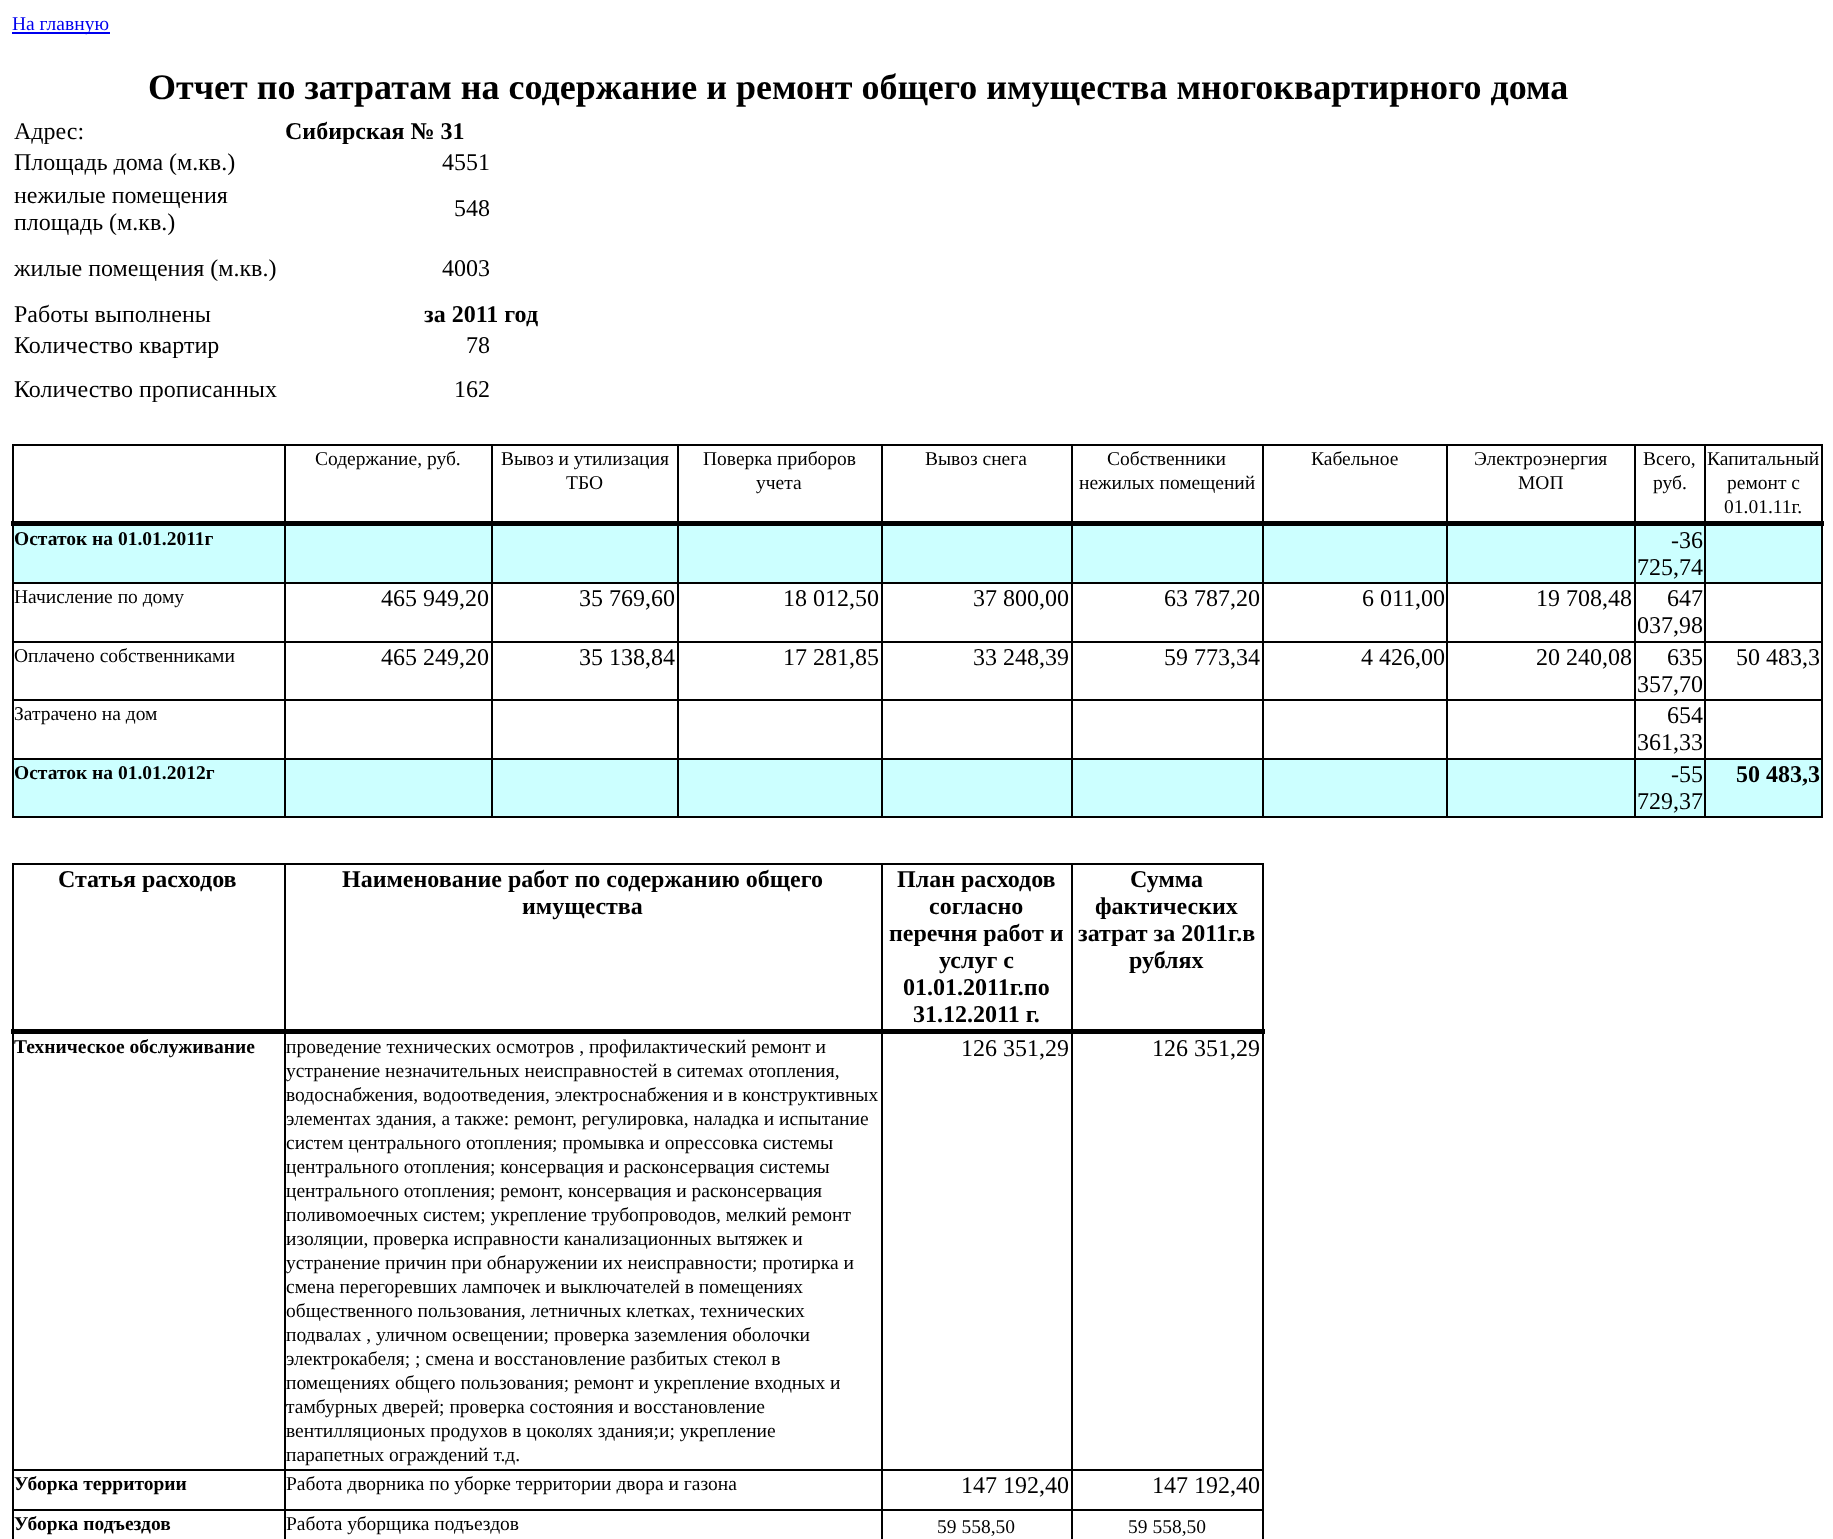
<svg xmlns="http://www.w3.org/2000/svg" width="1833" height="1539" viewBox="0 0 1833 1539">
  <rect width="100%" height="100%" fill="rgb(255,255,255)"/>
  <rect x="12" y="32" width="98" height="2" fill="rgb(0,0,238)"/>
  <text x="12" y="30" font-family="Liberation Serif" font-size="19.5" fill="rgb(0,0,238)">На главную</text>
  <text x="148" y="99" font-family="Liberation Serif" font-size="36" font-weight="bold" fill="rgb(0,0,0)">Отчет по затратам на содержание и ремонт общего имущества многоквартирного дома</text>
  <text x="14" y="139" font-family="Liberation Serif" font-size="24" fill="rgb(0,0,0)">Адрес:</text>
  <text x="285" y="139" font-family="Liberation Serif" font-size="24" font-weight="bold" fill="rgb(0,0,0)">Сибирская № 31</text>
  <g font-family="Liberation Serif" font-size="24" fill="rgb(0,0,0)">
    <text x="14" y="170">Площадь дома (м.кв.)</text>
    <text x="442" y="170">4551</text>
    <text>
      <tspan x="14" y="203">нежилые помещения</tspan>
      <tspan x="14" y="230">площадь (м.кв.)</tspan>
    </text>
    <text x="454" y="216">548</text>
    <text x="14" y="276">жилые помещения (м.кв.)</text>
    <text x="442" y="276">4003</text>
    <text x="14" y="322">Работы выполнены</text>
  </g>
  <text x="424" y="322" font-family="Liberation Serif" font-size="24" font-weight="bold" fill="rgb(0,0,0)">за 2011 год</text>
  <g font-family="Liberation Serif" font-size="24" fill="rgb(0,0,0)">
    <text x="14" y="353">Количество квартир</text>
    <text x="466" y="353">78</text>
    <text x="14" y="397">Количество прописанных</text>
    <text x="454" y="397">162</text>
  </g>
  <rect x="1704" y="444" width="119" height="2" fill="rgb(0,0,0)"/>
  <rect x="1704" y="582" width="119" height="2" fill="rgb(0,0,0)"/>
  <rect x="1704" y="641" width="119" height="2" fill="rgb(0,0,0)"/>
  <rect x="1704" y="699" width="119" height="2" fill="rgb(0,0,0)"/>
  <rect x="1704" y="758" width="119" height="2" fill="rgb(0,0,0)"/>
  <rect x="1821" y="758" width="2" height="60" fill="rgb(0,0,0)"/>
  <rect x="1704" y="816" width="119" height="2" fill="rgb(0,0,0)"/>
  <rect x="1704" y="758" width="2" height="60" fill="rgb(0,0,0)"/>
  <rect x="1634" y="758" width="72" height="2" fill="rgb(0,0,0)"/>
  <rect x="1704" y="699" width="2" height="60" fill="rgb(0,0,0)"/>
  <rect x="1634" y="699" width="72" height="2" fill="rgb(0,0,0)"/>
  <rect x="1704" y="641" width="2" height="60" fill="rgb(0,0,0)"/>
  <rect x="1634" y="641" width="72" height="2" fill="rgb(0,0,0)"/>
  <rect x="1704" y="582" width="2" height="60" fill="rgb(0,0,0)"/>
  <rect x="1634" y="582" width="72" height="2" fill="rgb(0,0,0)"/>
  <rect x="1704" y="522" width="2" height="62" fill="rgb(0,0,0)"/>
  <rect x="1704" y="444" width="2" height="80" fill="rgb(0,0,0)"/>
  <rect x="1634" y="444" width="72" height="2" fill="rgb(0,0,0)"/>
  <rect x="1634" y="816" width="72" height="2" fill="rgb(0,0,0)"/>
  <rect x="1634" y="758" width="2" height="60" fill="rgb(0,0,0)"/>
  <rect x="1446" y="758" width="189" height="2" fill="rgb(0,0,0)"/>
  <rect x="1634" y="699" width="2" height="60" fill="rgb(0,0,0)"/>
  <rect x="1446" y="699" width="189" height="2" fill="rgb(0,0,0)"/>
  <rect x="1634" y="641" width="2" height="60" fill="rgb(0,0,0)"/>
  <rect x="1446" y="641" width="189" height="2" fill="rgb(0,0,0)"/>
  <rect x="1634" y="582" width="2" height="60" fill="rgb(0,0,0)"/>
  <rect x="1446" y="582" width="189" height="2" fill="rgb(0,0,0)"/>
  <rect x="1634" y="522" width="2" height="62" fill="rgb(0,0,0)"/>
  <rect x="1634" y="444" width="2" height="80" fill="rgb(0,0,0)"/>
  <rect x="1446" y="444" width="189" height="2" fill="rgb(0,0,0)"/>
  <rect x="1446" y="816" width="189" height="2" fill="rgb(0,0,0)"/>
  <rect x="1446" y="758" width="2" height="60" fill="rgb(0,0,0)"/>
  <rect x="1262" y="758" width="186" height="2" fill="rgb(0,0,0)"/>
  <rect x="1446" y="699" width="2" height="60" fill="rgb(0,0,0)"/>
  <rect x="1262" y="699" width="186" height="2" fill="rgb(0,0,0)"/>
  <rect x="1446" y="641" width="2" height="60" fill="rgb(0,0,0)"/>
  <rect x="1262" y="641" width="186" height="2" fill="rgb(0,0,0)"/>
  <rect x="1446" y="582" width="2" height="60" fill="rgb(0,0,0)"/>
  <rect x="1262" y="582" width="186" height="2" fill="rgb(0,0,0)"/>
  <rect x="1446" y="522" width="2" height="62" fill="rgb(0,0,0)"/>
  <rect x="1446" y="444" width="2" height="80" fill="rgb(0,0,0)"/>
  <rect x="1262" y="444" width="186" height="2" fill="rgb(0,0,0)"/>
  <rect x="1262" y="816" width="186" height="2" fill="rgb(0,0,0)"/>
  <rect x="1262" y="758" width="2" height="60" fill="rgb(0,0,0)"/>
  <rect x="1071" y="758" width="192" height="2" fill="rgb(0,0,0)"/>
  <rect x="1262" y="699" width="2" height="60" fill="rgb(0,0,0)"/>
  <rect x="1071" y="699" width="192" height="2" fill="rgb(0,0,0)"/>
  <rect x="1262" y="641" width="2" height="60" fill="rgb(0,0,0)"/>
  <rect x="1071" y="641" width="192" height="2" fill="rgb(0,0,0)"/>
  <rect x="1262" y="582" width="2" height="60" fill="rgb(0,0,0)"/>
  <rect x="1071" y="582" width="192" height="2" fill="rgb(0,0,0)"/>
  <rect x="1262" y="522" width="2" height="62" fill="rgb(0,0,0)"/>
  <rect x="1262" y="444" width="2" height="80" fill="rgb(0,0,0)"/>
  <rect x="1071" y="444" width="192" height="2" fill="rgb(0,0,0)"/>
  <rect x="1071" y="816" width="192" height="2" fill="rgb(0,0,0)"/>
  <rect x="1071" y="758" width="2" height="60" fill="rgb(0,0,0)"/>
  <rect x="881" y="758" width="192" height="2" fill="rgb(0,0,0)"/>
  <rect x="1071" y="699" width="2" height="60" fill="rgb(0,0,0)"/>
  <rect x="881" y="699" width="192" height="2" fill="rgb(0,0,0)"/>
  <rect x="1071" y="641" width="2" height="60" fill="rgb(0,0,0)"/>
  <rect x="881" y="641" width="192" height="2" fill="rgb(0,0,0)"/>
  <rect x="1071" y="582" width="2" height="60" fill="rgb(0,0,0)"/>
  <rect x="881" y="582" width="192" height="2" fill="rgb(0,0,0)"/>
  <rect x="1071" y="522" width="2" height="62" fill="rgb(0,0,0)"/>
  <rect x="1071" y="444" width="2" height="80" fill="rgb(0,0,0)"/>
  <rect x="881" y="444" width="192" height="2" fill="rgb(0,0,0)"/>
  <rect x="881" y="816" width="192" height="2" fill="rgb(0,0,0)"/>
  <rect x="881" y="758" width="2" height="60" fill="rgb(0,0,0)"/>
  <rect x="677" y="758" width="205" height="2" fill="rgb(0,0,0)"/>
  <rect x="881" y="699" width="2" height="60" fill="rgb(0,0,0)"/>
  <rect x="677" y="699" width="205" height="2" fill="rgb(0,0,0)"/>
  <rect x="881" y="641" width="2" height="60" fill="rgb(0,0,0)"/>
  <rect x="677" y="641" width="205" height="2" fill="rgb(0,0,0)"/>
  <rect x="881" y="582" width="2" height="60" fill="rgb(0,0,0)"/>
  <rect x="677" y="582" width="205" height="2" fill="rgb(0,0,0)"/>
  <rect x="881" y="522" width="2" height="62" fill="rgb(0,0,0)"/>
  <rect x="881" y="444" width="2" height="80" fill="rgb(0,0,0)"/>
  <rect x="677" y="444" width="205" height="2" fill="rgb(0,0,0)"/>
  <rect x="677" y="816" width="205" height="2" fill="rgb(0,0,0)"/>
  <rect x="677" y="758" width="2" height="60" fill="rgb(0,0,0)"/>
  <rect x="491" y="758" width="187" height="2" fill="rgb(0,0,0)"/>
  <rect x="677" y="699" width="2" height="60" fill="rgb(0,0,0)"/>
  <rect x="491" y="699" width="187" height="2" fill="rgb(0,0,0)"/>
  <rect x="677" y="641" width="2" height="60" fill="rgb(0,0,0)"/>
  <rect x="491" y="641" width="187" height="2" fill="rgb(0,0,0)"/>
  <rect x="677" y="582" width="2" height="60" fill="rgb(0,0,0)"/>
  <rect x="491" y="582" width="187" height="2" fill="rgb(0,0,0)"/>
  <rect x="677" y="522" width="2" height="62" fill="rgb(0,0,0)"/>
  <rect x="677" y="444" width="2" height="80" fill="rgb(0,0,0)"/>
  <rect x="491" y="444" width="187" height="2" fill="rgb(0,0,0)"/>
  <rect x="491" y="816" width="187" height="2" fill="rgb(0,0,0)"/>
  <rect x="491" y="758" width="2" height="60" fill="rgb(0,0,0)"/>
  <rect x="284" y="758" width="208" height="2" fill="rgb(0,0,0)"/>
  <rect x="491" y="699" width="2" height="60" fill="rgb(0,0,0)"/>
  <rect x="284" y="699" width="208" height="2" fill="rgb(0,0,0)"/>
  <rect x="491" y="641" width="2" height="60" fill="rgb(0,0,0)"/>
  <rect x="284" y="641" width="208" height="2" fill="rgb(0,0,0)"/>
  <rect x="491" y="582" width="2" height="60" fill="rgb(0,0,0)"/>
  <rect x="284" y="582" width="208" height="2" fill="rgb(0,0,0)"/>
  <rect x="491" y="522" width="2" height="62" fill="rgb(0,0,0)"/>
  <rect x="491" y="444" width="2" height="80" fill="rgb(0,0,0)"/>
  <rect x="284" y="444" width="208" height="2" fill="rgb(0,0,0)"/>
  <rect x="284" y="816" width="208" height="2" fill="rgb(0,0,0)"/>
  <rect x="284" y="758" width="2" height="60" fill="rgb(0,0,0)"/>
  <rect x="12" y="758" width="273" height="2" fill="rgb(0,0,0)"/>
  <rect x="284" y="699" width="2" height="60" fill="rgb(0,0,0)"/>
  <rect x="12" y="699" width="273" height="2" fill="rgb(0,0,0)"/>
  <rect x="284" y="641" width="2" height="60" fill="rgb(0,0,0)"/>
  <rect x="12" y="641" width="273" height="2" fill="rgb(0,0,0)"/>
  <rect x="284" y="582" width="2" height="60" fill="rgb(0,0,0)"/>
  <rect x="12" y="582" width="273" height="2" fill="rgb(0,0,0)"/>
  <rect x="284" y="522" width="2" height="62" fill="rgb(0,0,0)"/>
  <rect x="284" y="444" width="2" height="80" fill="rgb(0,0,0)"/>
  <rect x="12" y="444" width="273" height="2" fill="rgb(0,0,0)"/>
  <rect x="12" y="816" width="273" height="2" fill="rgb(0,0,0)"/>
  <rect x="12" y="758" width="2" height="60" fill="rgb(0,0,0)"/>
  <rect x="12" y="699" width="2" height="60" fill="rgb(0,0,0)"/>
  <rect x="12" y="641" width="2" height="60" fill="rgb(0,0,0)"/>
  <rect x="12" y="522" width="2" height="120" fill="rgb(0,0,0)"/>
  <rect x="12" y="444" width="2" height="80" fill="rgb(0,0,0)"/>
  <g font-family="Liberation Serif" font-size="19.5" fill="rgb(0,0,0)">
    <text x="315" y="465">Содержание, руб.</text>
    <text x="501" y="465">Вывоз и утилизация</text>
    <text x="566" y="489">ТБО</text>
    <text x="703" y="465">Поверка приборов</text>
    <text x="756" y="489">учета</text>
    <text x="925" y="465">Вывоз снега</text>
    <text x="1107" y="465">Собственники</text>
    <text x="1079" y="489">нежилых помещений</text>
    <text x="1311" y="465">Кабельное</text>
    <text x="1474" y="465">Электроэнергия</text>
    <text x="1518" y="489">МОП</text>
    <text x="1643" y="465">Всего,</text>
    <text x="1653" y="489">руб.</text>
  </g>
  <rect x="1821" y="699" width="2" height="60" fill="rgb(0,0,0)"/>
  <rect x="1821" y="641" width="2" height="60" fill="rgb(0,0,0)"/>
  <rect x="1821" y="522" width="2" height="120" fill="rgb(0,0,0)"/>
  <rect x="1821" y="444" width="2" height="80" fill="rgb(0,0,0)"/>
  <rect x="11" y="521" width="1813" height="5" fill="rgb(0,0,0)"/>
  <g font-family="Liberation Serif" font-size="19.5" fill="rgb(0,0,0)">
    <text x="1707" y="465">Капитальный</text>
    <text x="1727" y="489">ремонт с</text>
    <text x="1724" y="513">01.01.11г.</text>
  </g>
  <rect x="14" y="526" width="270" height="56" fill="rgb(204,255,255)"/>
  <text x="14" y="545" font-family="Liberation Serif" font-size="19.5" font-weight="bold" fill="rgb(0,0,0)">Остаток на 01.01.2011г</text>
  <rect x="286" y="526" width="205" height="56" fill="rgb(204,255,255)"/>
  <rect x="493" y="526" width="184" height="56" fill="rgb(204,255,255)"/>
  <rect x="679" y="526" width="202" height="56" fill="rgb(204,255,255)"/>
  <rect x="883" y="526" width="188" height="56" fill="rgb(204,255,255)"/>
  <rect x="1073" y="526" width="189" height="56" fill="rgb(204,255,255)"/>
  <rect x="1264" y="526" width="182" height="56" fill="rgb(204,255,255)"/>
  <rect x="1448" y="526" width="186" height="56" fill="rgb(204,255,255)"/>
  <rect x="1636" y="526" width="68" height="56" fill="rgb(204,255,255)"/>
  <g font-family="Liberation Serif" font-size="24" fill="rgb(0,0,0)">
    <text x="1671" y="548">-36</text>
    <text x="1637" y="575">725,74</text>
  </g>
  <rect x="1706" y="526" width="115" height="56" fill="rgb(204,255,255)"/>
  <text x="14" y="603" font-family="Liberation Serif" font-size="19.5" fill="rgb(0,0,0)">Начисление по дому</text>
  <g font-family="Liberation Serif" font-size="24" fill="rgb(0,0,0)">
    <text x="381" y="606">465 949,20</text>
    <text x="579" y="606">35 769,60</text>
    <text x="783" y="606">18 012,50</text>
    <text x="973" y="606">37 800,00</text>
    <text x="1164" y="606">63 787,20</text>
    <text x="1362" y="606">6 011,00</text>
    <text x="1536" y="606">19 708,48</text>
    <text x="1667" y="606">647</text>
    <text x="1637" y="633">037,98</text>
  </g>
  <text x="14" y="662" font-family="Liberation Serif" font-size="19.5" fill="rgb(0,0,0)">Оплачено собственниками</text>
  <g font-family="Liberation Serif" font-size="24" fill="rgb(0,0,0)">
    <text x="381" y="665">465 249,20</text>
    <text x="579" y="665">35 138,84</text>
    <text x="783" y="665">17 281,85</text>
    <text x="973" y="665">33 248,39</text>
    <text x="1164" y="665">59 773,34</text>
    <text x="1361" y="665">4 426,00</text>
    <text x="1536" y="665">20 240,08</text>
    <text x="1667" y="665">635</text>
    <text x="1637" y="692">357,70</text>
    <text x="1736" y="665">50 483,3</text>
  </g>
  <text x="14" y="720" font-family="Liberation Serif" font-size="19.5" fill="rgb(0,0,0)">Затрачено на дом</text>
  <g font-family="Liberation Serif" font-size="24" fill="rgb(0,0,0)">
    <text x="1667" y="723">654</text>
    <text x="1637" y="750">361,33</text>
  </g>
  <rect x="14" y="760" width="270" height="56" fill="rgb(204,255,255)"/>
  <text x="14" y="779" font-family="Liberation Serif" font-size="19.5" font-weight="bold" fill="rgb(0,0,0)">Остаток на 01.01.2012г</text>
  <rect x="286" y="760" width="205" height="56" fill="rgb(204,255,255)"/>
  <rect x="493" y="760" width="184" height="56" fill="rgb(204,255,255)"/>
  <rect x="679" y="760" width="202" height="56" fill="rgb(204,255,255)"/>
  <rect x="883" y="760" width="188" height="56" fill="rgb(204,255,255)"/>
  <rect x="1073" y="760" width="189" height="56" fill="rgb(204,255,255)"/>
  <rect x="1264" y="760" width="182" height="56" fill="rgb(204,255,255)"/>
  <rect x="1448" y="760" width="186" height="56" fill="rgb(204,255,255)"/>
  <rect x="1636" y="760" width="68" height="56" fill="rgb(204,255,255)"/>
  <g font-family="Liberation Serif" font-size="24" fill="rgb(0,0,0)">
    <text x="1671" y="782">-55</text>
    <text x="1637" y="809">729,37</text>
  </g>
  <rect x="1706" y="760" width="115" height="56" fill="rgb(204,255,255)"/>
  <text x="1736" y="782" font-family="Liberation Serif" font-size="24" font-weight="bold" fill="rgb(0,0,0)">50 483,3</text>
  <rect x="1071" y="863" width="192" height="2" fill="rgb(0,0,0)"/>
  <rect x="1071" y="1469" width="192" height="2" fill="rgb(0,0,0)"/>
  <rect x="1071" y="1509" width="192" height="2" fill="rgb(0,0,0)"/>
  <rect x="1071" y="1509" width="2" height="30" fill="rgb(0,0,0)"/>
  <rect x="881" y="1509" width="192" height="2" fill="rgb(0,0,0)"/>
  <rect x="1071" y="1469" width="2" height="42" fill="rgb(0,0,0)"/>
  <rect x="881" y="1469" width="192" height="2" fill="rgb(0,0,0)"/>
  <rect x="1071" y="1031" width="2" height="439" fill="rgb(0,0,0)"/>
  <rect x="1071" y="863" width="2" height="169" fill="rgb(0,0,0)"/>
  <rect x="881" y="863" width="192" height="2" fill="rgb(0,0,0)"/>
  <rect x="881" y="1509" width="2" height="30" fill="rgb(0,0,0)"/>
  <rect x="284" y="1509" width="598" height="2" fill="rgb(0,0,0)"/>
  <rect x="881" y="1469" width="2" height="42" fill="rgb(0,0,0)"/>
  <rect x="284" y="1469" width="598" height="2" fill="rgb(0,0,0)"/>
  <rect x="881" y="1031" width="2" height="439" fill="rgb(0,0,0)"/>
  <rect x="881" y="863" width="2" height="169" fill="rgb(0,0,0)"/>
  <rect x="284" y="863" width="598" height="2" fill="rgb(0,0,0)"/>
  <rect x="284" y="1509" width="2" height="30" fill="rgb(0,0,0)"/>
  <rect x="12" y="1509" width="273" height="2" fill="rgb(0,0,0)"/>
  <rect x="284" y="1469" width="2" height="42" fill="rgb(0,0,0)"/>
  <rect x="12" y="1469" width="273" height="2" fill="rgb(0,0,0)"/>
  <rect x="284" y="1031" width="2" height="439" fill="rgb(0,0,0)"/>
  <rect x="284" y="863" width="2" height="169" fill="rgb(0,0,0)"/>
  <rect x="12" y="863" width="273" height="2" fill="rgb(0,0,0)"/>
  <rect x="12" y="1509" width="2" height="30" fill="rgb(0,0,0)"/>
  <rect x="12" y="1031" width="2" height="480" fill="rgb(0,0,0)"/>
  <rect x="12" y="863" width="2" height="169" fill="rgb(0,0,0)"/>
  <g font-family="Liberation Serif" font-size="24" font-weight="bold" fill="rgb(0,0,0)">
    <text x="58" y="887">Статья расходов</text>
    <text x="342" y="887">Наименование работ по содержанию общего</text>
    <text x="522" y="914">имущества</text>
    <text x="897" y="887">План расходов</text>
    <text x="929" y="914">согласно</text>
    <text x="889" y="941">перечня работ и</text>
    <text x="939" y="968">услуг с</text>
    <text x="903" y="995">01.01.2011г.по</text>
    <text x="913" y="1022">31.12.2011 г.</text>
  </g>
  <rect x="1262" y="1509" width="2" height="30" fill="rgb(0,0,0)"/>
  <rect x="1262" y="1031" width="2" height="480" fill="rgb(0,0,0)"/>
  <rect x="1262" y="863" width="2" height="169" fill="rgb(0,0,0)"/>
  <rect x="11" y="1029" width="1254" height="5" fill="rgb(0,0,0)"/>
  <g font-family="Liberation Serif" font-size="24" font-weight="bold" fill="rgb(0,0,0)">
    <text x="1130" y="887">Сумма</text>
    <text x="1095" y="914">фактических</text>
    <text x="1078" y="941">затрат за 2011г.в</text>
    <text x="1129" y="968">рублях</text>
  </g>
  <text x="14" y="1053" font-family="Liberation Serif" font-size="19.5" font-weight="bold" fill="rgb(0,0,0)">Техническое обслуживание</text>
  <g font-family="Liberation Serif" font-size="19.5" fill="rgb(0,0,0)">
    <text>
      <tspan x="286" y="1053">проведение технических осмотров , профилактический ремонт и</tspan>
      <tspan x="286" y="1077">устранение незначительных неисправностей в ситемах отопления,</tspan>
      <tspan x="286" y="1101">водоснабжения, водоотведения, электроснабжения и в конструктивных</tspan>
      <tspan x="286" y="1125">элементах здания, а также: ремонт, регулировка, наладка и испытание</tspan>
      <tspan x="286" y="1149">систем центрального отопления; промывка и опрессовка системы</tspan>
      <tspan x="286" y="1173">центрального отопления; консервация и расконсервация системы</tspan>
      <tspan x="286" y="1197">центрального отопления; ремонт, консервация и расконсервация</tspan>
      <tspan x="286" y="1221">поливомоечных систем; укрепление трубопроводов, мелкий ремонт</tspan>
      <tspan x="286" y="1245">изоляции, проверка исправности канализационных вытяжек и</tspan>
      <tspan x="286" y="1269">устранение причин при обнаружении их неисправности; протирка и</tspan>
      <tspan x="286" y="1293">смена перегоревших лампочек и выключателей в помещениях</tspan>
      <tspan x="286" y="1317">общественного пользования, летничных клетках, технических</tspan>
      <tspan x="286" y="1341">подвалах , уличном освещении; проверка заземления оболочки</tspan>
      <tspan x="286" y="1365">электрокабеля; ; смена и восстановление разбитых стекол в</tspan>
      <tspan x="286" y="1389">помещениях общего пользования; ремонт и укрепление входных и</tspan>
      <tspan x="286" y="1413">тамбурных дверей; проверка состояния и восстановление</tspan>
      <tspan x="286" y="1437">вентилляционых продухов в цоколях здания;и; укрепление</tspan>
      <tspan x="286" y="1461">парапетных ограждений т.д.</tspan>
    </text>
  </g>
  <g font-family="Liberation Serif" font-size="24" fill="rgb(0,0,0)">
    <text x="961" y="1056">126 351,29</text>
    <text x="1152" y="1056">126 351,29</text>
  </g>
  <text x="14" y="1490" font-family="Liberation Serif" font-size="19.5" font-weight="bold" fill="rgb(0,0,0)">Уборка территории</text>
  <text x="286" y="1490" font-family="Liberation Serif" font-size="19.5" fill="rgb(0,0,0)">Работа дворника по уборке территории двора и газона</text>
  <g font-family="Liberation Serif" font-size="24" fill="rgb(0,0,0)">
    <text x="961" y="1493">147 192,40</text>
    <text x="1152" y="1493">147 192,40</text>
  </g>
  <text x="14" y="1530" font-family="Liberation Serif" font-size="19.5" font-weight="bold" fill="rgb(0,0,0)">Уборка подъездов</text>
  <g font-family="Liberation Serif" font-size="19.5" fill="rgb(0,0,0)">
    <text x="286" y="1530">Работа уборщика подъездов</text>
    <text x="937" y="1533">59 558,50</text>
    <text x="1128" y="1533">59 558,50</text>
  </g>
</svg>
